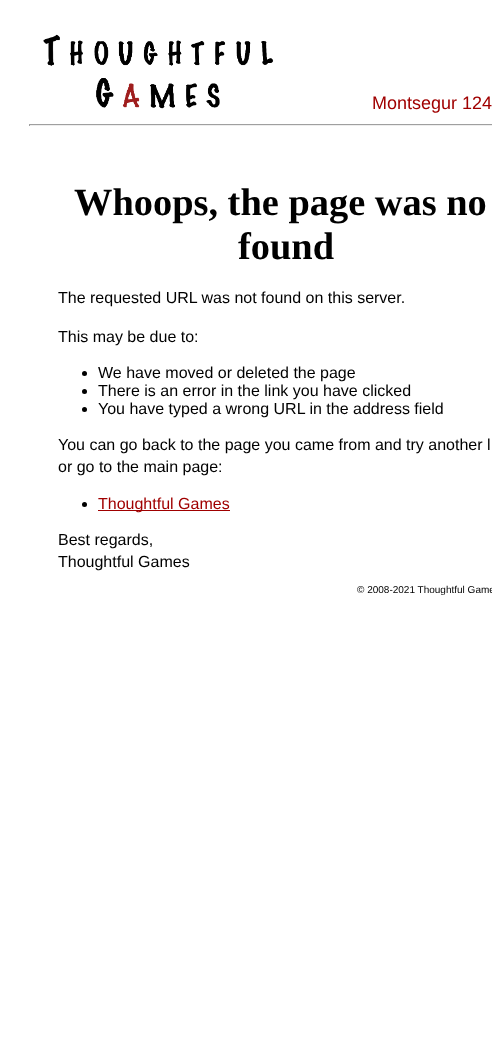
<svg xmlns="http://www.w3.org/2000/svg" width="492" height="1044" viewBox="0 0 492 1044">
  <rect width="100%" height="100%" fill="rgb(255,255,255)"/>
  <image x="43" y="34" width="231" height="75" href="pic1.png"/>
  <text x="372" y="109" font-family="Liberation Sans" font-size="18" fill="rgb(160,0,0)">Montsegur 124</text>
  <rect x="29" y="124" width="463" height="1" fill="rgb(159,159,159)"/>
  <rect x="29" y="125" width="463" height="1" fill="rgb(238,238,238)"/>
  <rect x="29" y="124" width="1" height="2" fill="rgb(159,159,159)"/>
  <g font-family="Liberation Serif" font-size="38.4" font-weight="bold" fill="rgb(0,0,0)">
    <text x="74" y="215">Whoops, the page was no</text>
    <text x="238" y="259">found</text>
  </g>
  <g font-family="Liberation Sans" font-size="16" fill="rgb(0,0,0)">
    <text x="58" y="303">The requested URL was not found on this server.</text>
    <text x="58" y="342">This may be due to:</text>
  </g>
  <circle cx="84.5" cy="373.5" r="2.5" fill="rgb(0,0,0)"/>
  <text x="98" y="378" font-family="Liberation Sans" font-size="16" fill="rgb(0,0,0)">We have moved or deleted the page</text>
  <circle cx="84.5" cy="391.5" r="2.5" fill="rgb(0,0,0)"/>
  <text x="98" y="396" font-family="Liberation Sans" font-size="16" fill="rgb(0,0,0)">There is an error in the link you have clicked</text>
  <circle cx="84.5" cy="409.5" r="2.5" fill="rgb(0,0,0)"/>
  <g font-family="Liberation Sans" font-size="16" fill="rgb(0,0,0)">
    <text x="98" y="414">You have typed a wrong URL in the address field</text>
    <text>
      <tspan x="58" y="450">You can go back to the page you came from and try another l</tspan>
      <tspan x="58" y="472">or go to the main page:</tspan>
    </text>
  </g>
  <circle cx="84.5" cy="504.5" r="2.5" fill="rgb(0,0,0)"/>
  <rect x="98" y="510" width="132" height="1" fill="rgb(160,0,0)"/>
  <text x="98" y="509" font-family="Liberation Sans" font-size="16" fill="rgb(160,0,0)">Thoughtful Games</text>
  <g font-family="Liberation Sans" font-size="16" fill="rgb(0,0,0)">
    <text>
      <tspan x="58" y="545">Best regards,</tspan>
      <tspan x="58" y="567">Thoughtful Games</tspan>
    </text>
  </g>
  <text x="357" y="593" font-family="Liberation Sans" font-size="10" fill="rgb(0,0,0)">© 2008-2021 Thoughtful Game</text>
</svg>
